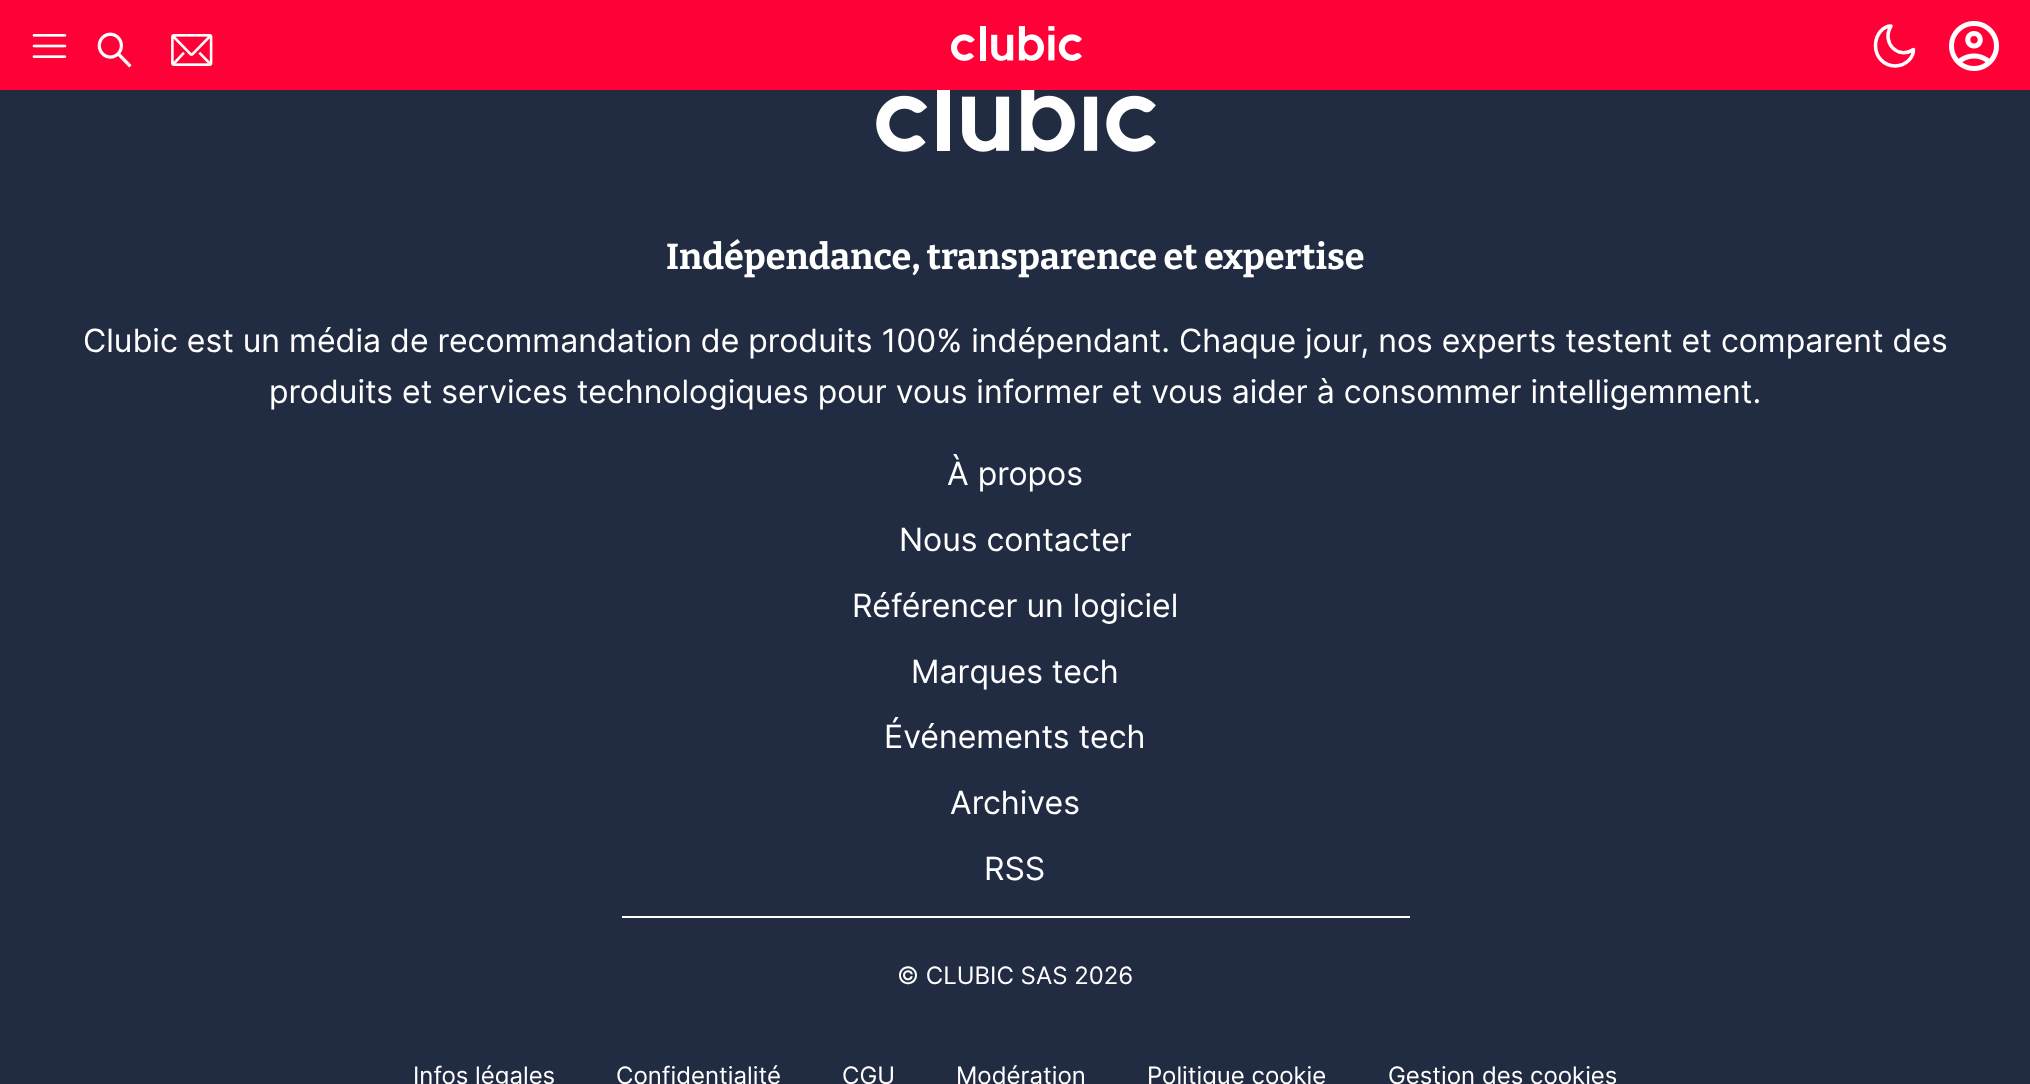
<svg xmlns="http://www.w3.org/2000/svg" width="2030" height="1084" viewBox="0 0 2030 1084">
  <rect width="100%" height="100%" fill="rgb(33,44,66)"/>
  <rect x="0" y="0" width="2030" height="90" fill="rgb(255,0,55)"/>
  <image x="32" y="34" width="35" height="24" href="pic1.png"/>
  <image x="97" y="32" width="35" height="36" href="pic2.png"/>
  <image x="171" y="34" width="42" height="32" href="pic3.png"/>
  <image x="951" y="26" width="131" height="35" href="pic4.png"/>
  <path d="M1891 26C1884 26 1875.5 33.5 1875.5 45.5C1875.5 57 1884 66 1895 66C1906.5 66 1913.5 57 1913.5 49.5C1898 60 1881 42.5 1891 26Z" fill="none" stroke="rgb(255,255,255)" stroke-width="3.5" stroke-linecap="round" stroke-linejoin="round"/>
  <image x="1949" y="21" width="50" height="50" href="pic5.png"/>
  <image x="876" y="90" width="280" height="62" href="pic6.png"/>
  <text x="666" y="269" font-family="Bitter" font-size="36" font-weight="100" fill="rgb(255,255,255)">Indépendance, transparence et expertise</text>
  <g font-family="Inter" font-size="32" fill="rgb(255,255,255)">
    <text x="83" y="352">Clubic est un média de recommandation de produits 100% indépendant. Chaque jour, nos experts testent et comparent des</text>
    <text x="269" y="403">produits et services technologiques pour vous informer et vous aider à consommer intelligemment.</text>
    <text x="947" y="485">À propos</text>
    <text x="899" y="551">Nous contacter</text>
    <text x="852" y="617">Référencer un logiciel</text>
    <text x="911" y="683">Marques tech</text>
    <text x="884" y="748">Événements tech</text>
    <text x="950" y="814">Archives</text>
    <text x="984" y="880">RSS</text>
  </g>
  <rect x="622" y="916" width="788" height="2" fill="rgb(255,255,255)"/>
  <g font-family="Inter" font-size="24" fill="rgb(255,255,255)">
    <text x="897" y="984">© CLUBIC SAS 2026</text>
    <text x="413" y="1084">Infos légales</text>
    <text x="616" y="1084">Confidentialité</text>
    <text x="842" y="1084">CGU</text>
    <text x="956" y="1084">Modération</text>
    <text x="1147" y="1084">Politique cookie</text>
    <text x="1388" y="1084">Gestion des cookies</text>
  </g>
</svg>
